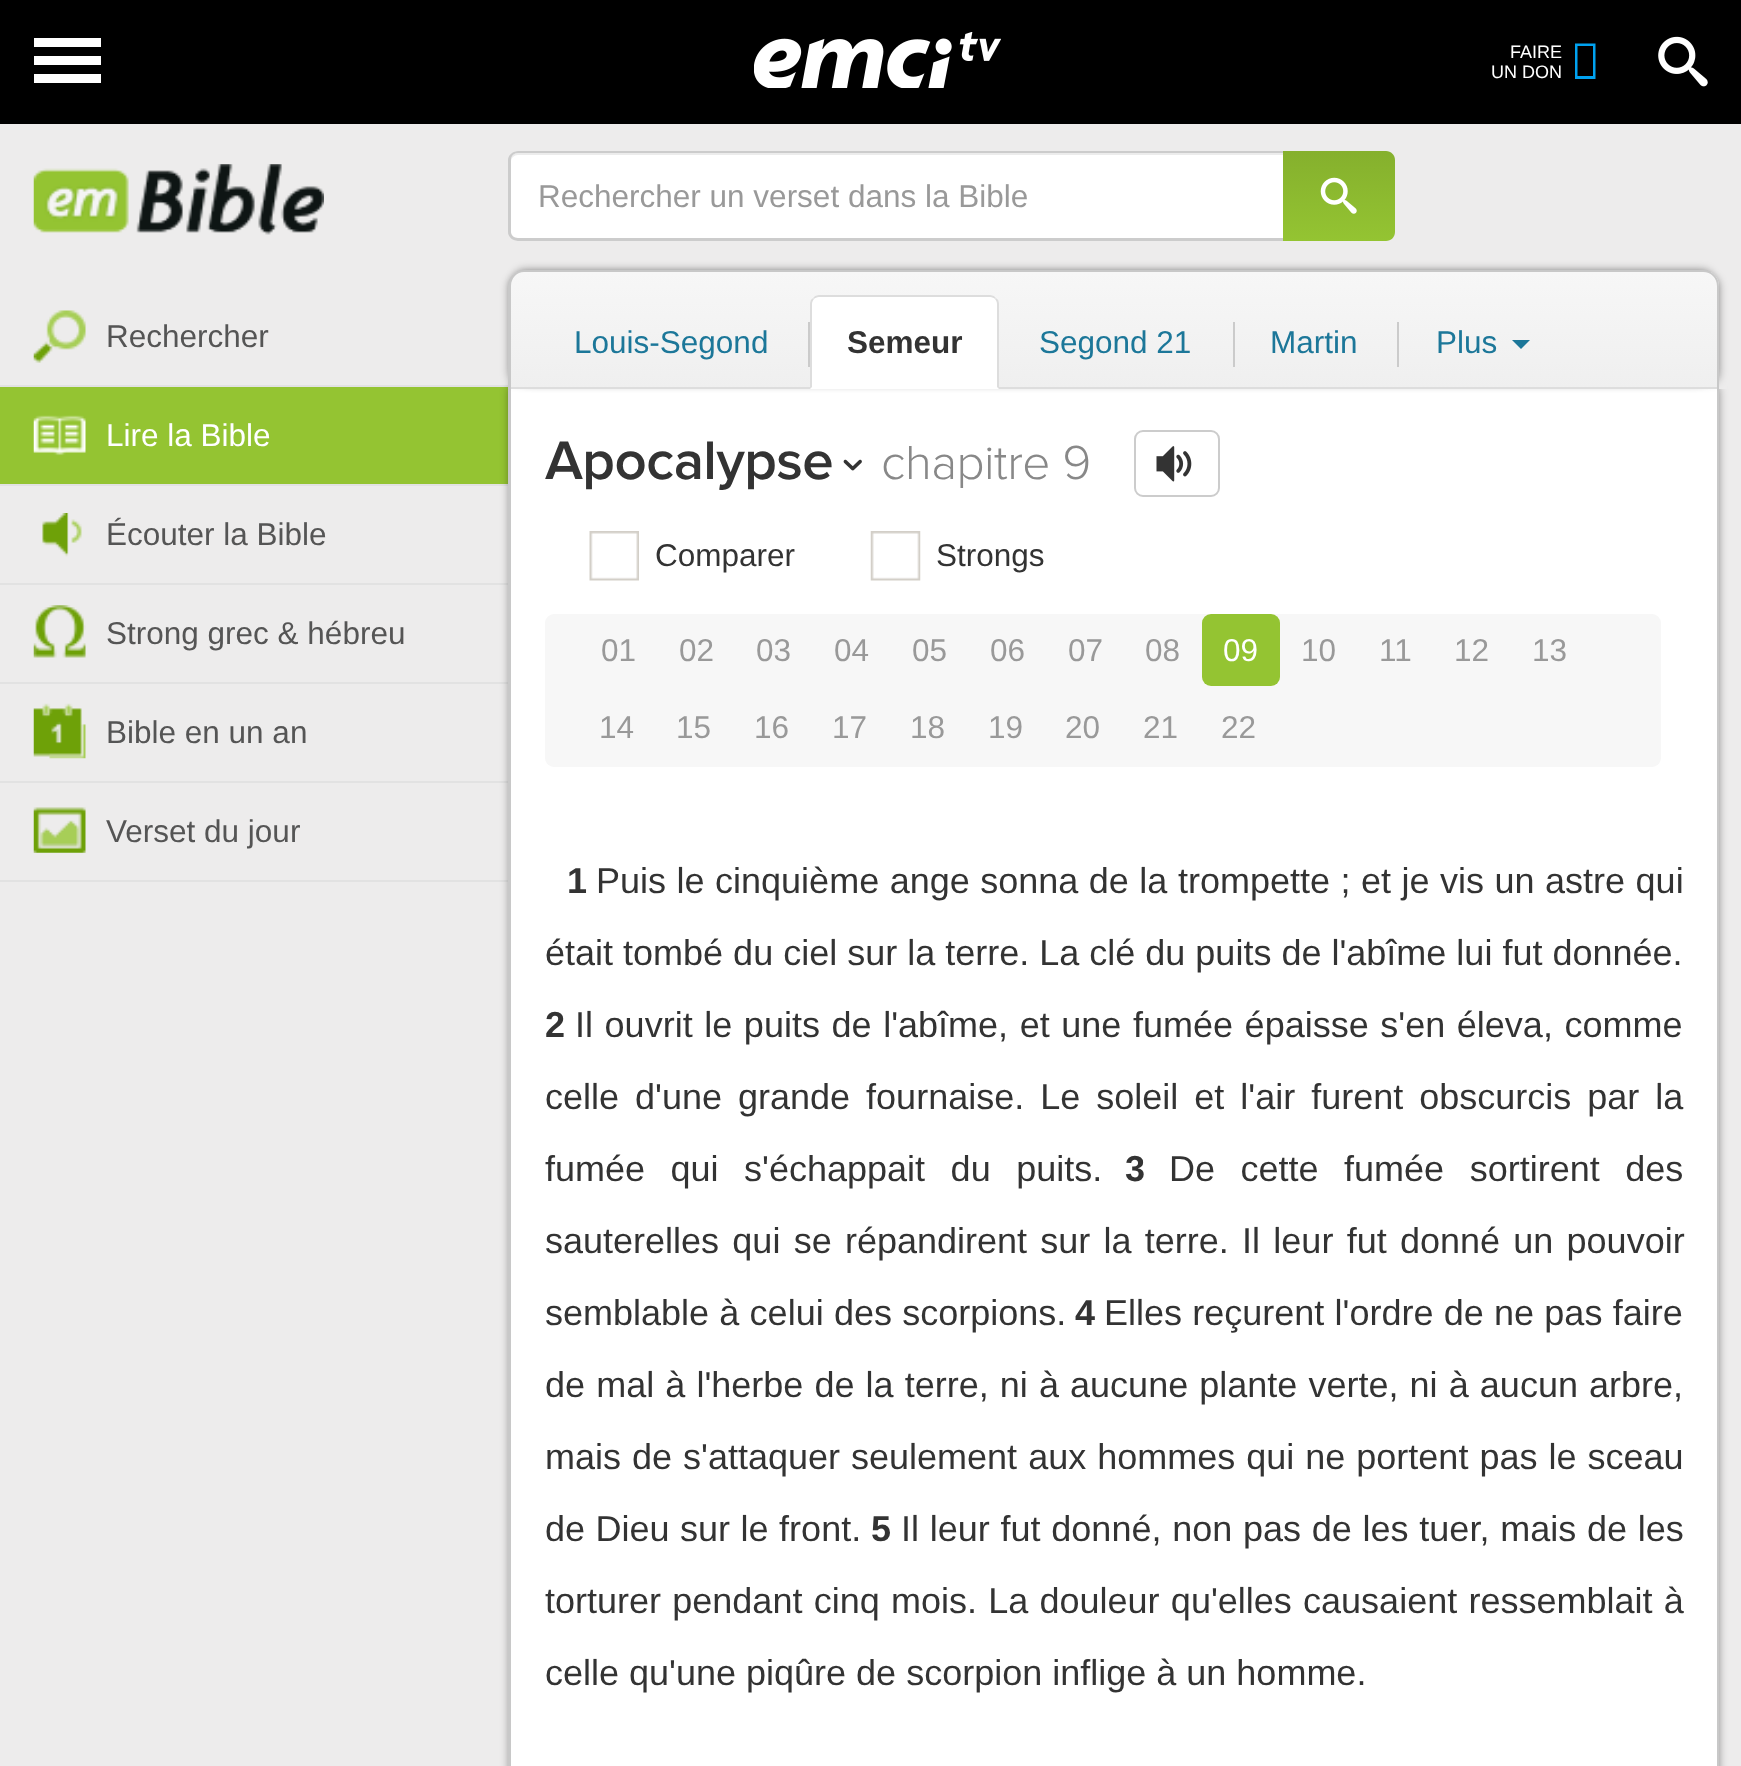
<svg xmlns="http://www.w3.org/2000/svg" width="1741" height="1766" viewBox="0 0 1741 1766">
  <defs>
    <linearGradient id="g1" gradientUnits="userSpaceOnUse" x1="1339" y1="151" x2="1339" y2="241"><stop offset="0" stop-color="rgb(133,176,45)"/><stop offset="1" stop-color="rgb(148,196,50)"/></linearGradient>
    <clipPath id="clip1"><path d="M525 270H1703C1712 270 1719 277 1719 286V389H509V286C509 277 516 270 525 270Z"/></clipPath>
    <linearGradient id="g2" gradientUnits="userSpaceOnUse" x1="1114" y1="272" x2="1114" y2="389"><stop offset="0" stop-color="rgb(247,247,247)"/><stop offset="1" stop-color="rgb(239,239,239)"/></linearGradient>
  </defs>
  <rect width="100%" height="100%" fill="rgb(237,236,236)"/>
  <rect x="0" y="0" width="1741" height="124" fill="rgb(0,0,0)"/>
  <rect x="34" y="38" width="67" height="9" fill="rgb(255,255,255)"/>
  <rect x="34" y="56" width="67" height="9" fill="rgb(255,255,255)"/>
  <rect x="34" y="74" width="67" height="9" fill="rgb(255,255,255)"/>
  <image x="754" y="32" width="247" height="56" href="pic1.png"/>
  <g font-family="Liberation Sans" font-size="18" fill="rgb(255,255,255)">
    <text x="1510" y="58">FAIRE</text>
    <text x="1491" y="78">UN DON</text>
  </g>
  <path d="M1575 79V43.5H1595.5V79ZM1577.5 76H1593V46H1577.5Z" fill="rgb(0,162,240)"/>
  <image x="1658" y="36" width="50" height="51" href="pic2.png"/>
  <rect x="0" y="385" width="509" height="2" fill="rgb(226,226,226)"/>
  <rect x="0" y="387" width="508" height="97" fill="rgb(148,196,50)"/>
  <rect x="0" y="484" width="509" height="2" fill="rgb(226,226,226)"/>
  <rect x="0" y="583" width="509" height="2" fill="rgb(226,226,226)"/>
  <rect x="0" y="682" width="509" height="2" fill="rgb(226,226,226)"/>
  <rect x="0" y="781" width="509" height="2" fill="rgb(226,226,226)"/>
  <rect x="0" y="880" width="509" height="2" fill="rgb(226,226,226)"/>
  <rect x="522" y="383" width="1197" height="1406" rx="9" fill="rgba(0,0,0,0.4)" filter="blur(4.5px)"/>
  <rect x="509" y="383" width="1197" height="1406" rx="9" fill="rgba(0,0,0,0.4)" filter="blur(4.5px)"/>
  <rect x="511" y="389" width="1206" height="1377" fill="rgb(255,255,255)"/>
  <path d="M508 376H1719V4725C1719 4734 1712 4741 1703 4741H524C516 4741 508 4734 508 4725ZM511 376H1717V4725C1717 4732 1711 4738 1703 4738H524C517 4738 511 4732 511 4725Z" fill="rgb(200,200,200)" fill-rule="evenodd"/>
  <rect x="509" y="373" width="1218" height="16" fill="rgb(237,236,236)"/>
  <path d="M518 151H1285V241H518C513 241 509 237 509 232V160C509 155 513 151 518 151Z" fill="rgb(255,255,255)"/>
  <path d="M518 155H1285V153H518C514 153 511 156 511 160V162C511 158 514 155 518 155Z" fill="rgb(236,236,236)"/>
  <path d="M518 151H1285V241H518C513 241 508 237 508 232V160C508 155 513 151 518 151ZM518 153H1285V238H518C514 238 511 235 511 232V160C511 156 514 153 518 153Z" fill="rgb(204,204,204)" fill-rule="evenodd"/>
  <text x="538" y="207" font-family="Liberation Sans" font-size="31.5" fill="rgb(153,153,153)">Rechercher un verset dans la Bible</text>
  <path d="M1283 151H1386C1391 151 1395 155 1395 160V232C1395 237 1391 241 1386 241H1283Z" fill="url(#g1)"/>
  <image x="1320" y="177" width="37" height="37" href="pic3.png"/>
  <rect x="522" y="277" width="1197" height="106" rx="9" fill="rgba(0,0,0,0.4)" filter="blur(4.5px)"/>
  <rect x="509" y="277" width="1197" height="106" rx="9" fill="rgba(0,0,0,0.4)" filter="blur(4.5px)"/>
  <rect x="515" y="270" width="1197" height="106" rx="9" fill="rgba(0,0,0,0.4)" filter="blur(4.5px)"/>
  <g clip-path="url(#clip1)">
    <rect x="509" y="272" width="1210" height="115" fill="url(#g2)"/>
  </g>
  <path d="M524 270H1703C1712 270 1719 277 1719 286V389H508V286C508 277 516 270 524 270ZM524 272H1703C1711 272 1717 278 1717 286V389H511V286C511 278 517 272 524 272Z" fill="rgb(200,200,200)" fill-rule="evenodd"/>
  <rect x="511" y="387" width="1206" height="2" fill="rgb(221,221,221)"/>
  <text x="574" y="353" font-family="Liberation Sans" font-size="31.5" fill="rgb(28,119,153)">Louis-Segond</text>
  <rect x="808" y="322" width="2" height="45" fill="rgb(203,203,203)"/>
  <path d="M819 295H990C995 295 999 299 999 304V389H810V304C810 299 814 295 819 295Z" fill="rgb(255,255,255)"/>
  <path d="M819 295C817 295 814 296 813 298L814 299C815 298 817 297 819 297H990C992 297 994 298 995 299L996 298C995 296 992 295 990 295Z" fill="rgb(221,221,221)"/>
  <path d="M996 298C998 299 999 301 999 304V389L997 387V304C997 302 996 300 995 299Z" fill="rgb(221,221,221)"/>
  <path d="M810 304V389L812 387V304C812 302 813 300 814 299L813 298C811 299 810 301 810 304Z" fill="rgb(221,221,221)"/>
  <text x="847" y="353" font-family="Liberation Sans" font-size="31.5" font-weight="bold" fill="rgb(51,51,51)">Semeur</text>
  <text x="1039" y="353" font-family="Liberation Sans" font-size="31.5" fill="rgb(28,119,153)">Segond 21</text>
  <rect x="1233" y="322" width="2" height="45" fill="rgb(203,203,203)"/>
  <text x="1270" y="353" font-family="Liberation Sans" font-size="31.5" fill="rgb(28,119,153)">Martin</text>
  <rect x="1397" y="322" width="2" height="45" fill="rgb(203,203,203)"/>
  <text x="1436" y="353" font-family="Liberation Sans" font-size="31.5" fill="rgb(28,119,153)">Plus</text>
  <path d="M1512 340H1530L1521 349Z" fill="rgb(28,119,153)"/>
  <image x="33" y="164" width="291" height="71" href="pic4.png"/>
  <image x="33" y="310" width="53" height="53" href="pic5.png"/>
  <text x="106" y="347" font-family="Liberation Sans" font-size="31.5" fill="rgb(85,85,85)">Rechercher</text>
  <image x="33" y="415" width="53" height="41" href="pic6.png"/>
  <text x="106" y="446" font-family="Liberation Sans" font-size="31.5" fill="rgb(255,255,255)">Lire la Bible</text>
  <image x="42" y="513" width="40" height="44" href="pic7.png"/>
  <text x="106" y="545" font-family="Liberation Sans" font-size="31.5" fill="rgb(85,85,85)">Écouter la Bible</text>
  <image x="33" y="605" width="53" height="53" href="pic8.png"/>
  <text x="106" y="644" font-family="Liberation Sans" font-size="31.5" fill="rgb(85,85,85)">Strong grec &amp; hébreu</text>
  <image x="33" y="703" width="53" height="56" href="pic9.png"/>
  <text x="106" y="743" font-family="Liberation Sans" font-size="31.5" fill="rgb(85,85,85)">Bible en un an</text>
  <image x="33" y="807" width="53" height="46" href="pic10.png"/>
  <text x="106" y="842" font-family="Liberation Sans" font-size="31.5" fill="rgb(85,85,85)">Verset du jour</text>
  <text x="545" y="479" font-family="Proxima Nova" font-size="56.25" font-weight="600" letter-spacing="-0.5" fill="rgb(51,51,51)">Apocalypse</text>
  <image x="843" y="459" width="19" height="12" href="pic11.png"/>
  <text x="881" y="479" font-family="Proxima Nova" font-size="49.5" font-weight="300" letter-spacing="-0.5" fill="rgb(136,136,136)">chapitre 9</text>
  <rect x="1135" y="431" width="84" height="65" rx="8" fill="none" stroke="rgb(204,204,204)" stroke-width="2"/>
  <image x="1156" y="446" width="36" height="36" href="pic12.png"/>
  <image x="589" y="531" width="50" height="50" href="pic13.png"/>
  <text x="655" y="566" font-family="Liberation Sans" font-size="31.5" fill="rgb(51,51,51)">Comparer</text>
  <image x="870" y="531" width="51" height="50" href="pic14.png"/>
  <text x="936" y="566" font-family="Liberation Sans" font-size="31.5" fill="rgb(51,51,51)">Strongs</text>
  <rect x="545" y="614" width="1116" height="153" rx="9" fill="rgb(247,247,247)"/>
  <g font-family="Liberation Sans" font-size="31.5" fill="rgb(153,153,153)">
    <text x="601" y="661">01</text>
    <text x="679" y="661">02</text>
    <text x="756" y="661">03</text>
    <text x="834" y="661">04</text>
    <text x="912" y="661">05</text>
    <text x="990" y="661">06</text>
    <text x="1068" y="661">07</text>
    <text x="1145" y="661">08</text>
  </g>
  <rect x="1202" y="614" width="78" height="72" rx="9" fill="rgb(148,196,50)"/>
  <text x="1223" y="661" font-family="Liberation Sans" font-size="31.5" fill="rgb(255,255,255)">09</text>
  <g font-family="Liberation Sans" font-size="31.5" fill="rgb(153,153,153)">
    <text x="1301" y="661">10</text>
    <text x="1379" y="661">11</text>
    <text x="1454" y="661">12</text>
    <text x="1532" y="661">13</text>
    <text x="599" y="738">14</text>
    <text x="676" y="738">15</text>
    <text x="754" y="738">16</text>
    <text x="832" y="738">17</text>
    <text x="910" y="738">18</text>
    <text x="988" y="738">19</text>
    <text x="1065" y="738">20</text>
    <text x="1143" y="738">21</text>
    <text x="1221" y="738">22</text>
  </g>
  <text x="567" y="893" font-family="Liberation Sans" font-size="36" font-weight="bold" fill="rgb(51,51,51)">1</text>
  <g font-family="Liberation Sans" font-size="36" fill="rgb(51,51,51)">
    <text x="596" y="893" word-spacing="0.5">Puis le cinquième ange sonna de la trompette ; et je vis un astre qui</text>
    <text x="545" y="965">était tombé du ciel sur la terre. La clé du puits de l'abîme lui fut donnée.</text>
  </g>
  <text x="545" y="1037" font-family="Liberation Sans" font-size="36" font-weight="bold" fill="rgb(51,51,51)">2</text>
  <g font-family="Liberation Sans" font-size="36" fill="rgb(51,51,51)">
    <text x="575" y="1037" word-spacing="1.6">Il ouvrit le puits de l'abîme, et une fumée épaisse s'en éleva, comme</text>
    <text x="545" y="1109" word-spacing="6">celle d'une grande fournaise. Le soleil et l'air furent obscurcis par la</text>
    <text x="545" y="1181" word-spacing="15.5">fumée qui s'échappait du puits.</text>
  </g>
  <text x="1125" y="1181" font-family="Liberation Sans" font-size="36" font-weight="bold" fill="rgb(51,51,51)">3</text>
  <g font-family="Liberation Sans" font-size="36" fill="rgb(51,51,51)">
    <text x="1169" y="1181" word-spacing="15.5">De cette fumée sortirent des</text>
    <text x="545" y="1253" word-spacing="3.25">sauterelles qui se répandirent sur la terre. Il leur fut donné un pouvoir</text>
    <text x="545" y="1325" word-spacing="0.25">semblable à celui des scorpions.</text>
  </g>
  <text x="1075" y="1325" font-family="Liberation Sans" font-size="36" font-weight="bold" fill="rgb(51,51,51)">4</text>
  <g font-family="Liberation Sans" font-size="36" fill="rgb(51,51,51)">
    <text x="1104" y="1325" word-spacing="0.25">Elles reçurent l'ordre de ne pas faire</text>
    <text x="545" y="1397" word-spacing="1.1">de mal à l'herbe de la terre, ni à aucune plante verte, ni à aucun arbre,</text>
    <text x="545" y="1469" word-spacing="1">mais de s'attaquer seulement aux hommes qui ne portent pas le sceau</text>
    <text x="545" y="1541" word-spacing="0.5">de Dieu sur le front.</text>
  </g>
  <text x="871" y="1541" font-family="Liberation Sans" font-size="36" font-weight="bold" fill="rgb(51,51,51)">5</text>
  <g font-family="Liberation Sans" font-size="36" fill="rgb(51,51,51)">
    <text x="901" y="1541" word-spacing="0.75">Il leur fut donné, non pas de les tuer, mais de les</text>
    <text x="545" y="1613" word-spacing="1.25">torturer pendant cinq mois. La douleur qu'elles causaient ressemblait à</text>
    <text x="545" y="1685">celle qu'une piqûre de scorpion inflige à un homme.</text>
  </g>
</svg>
